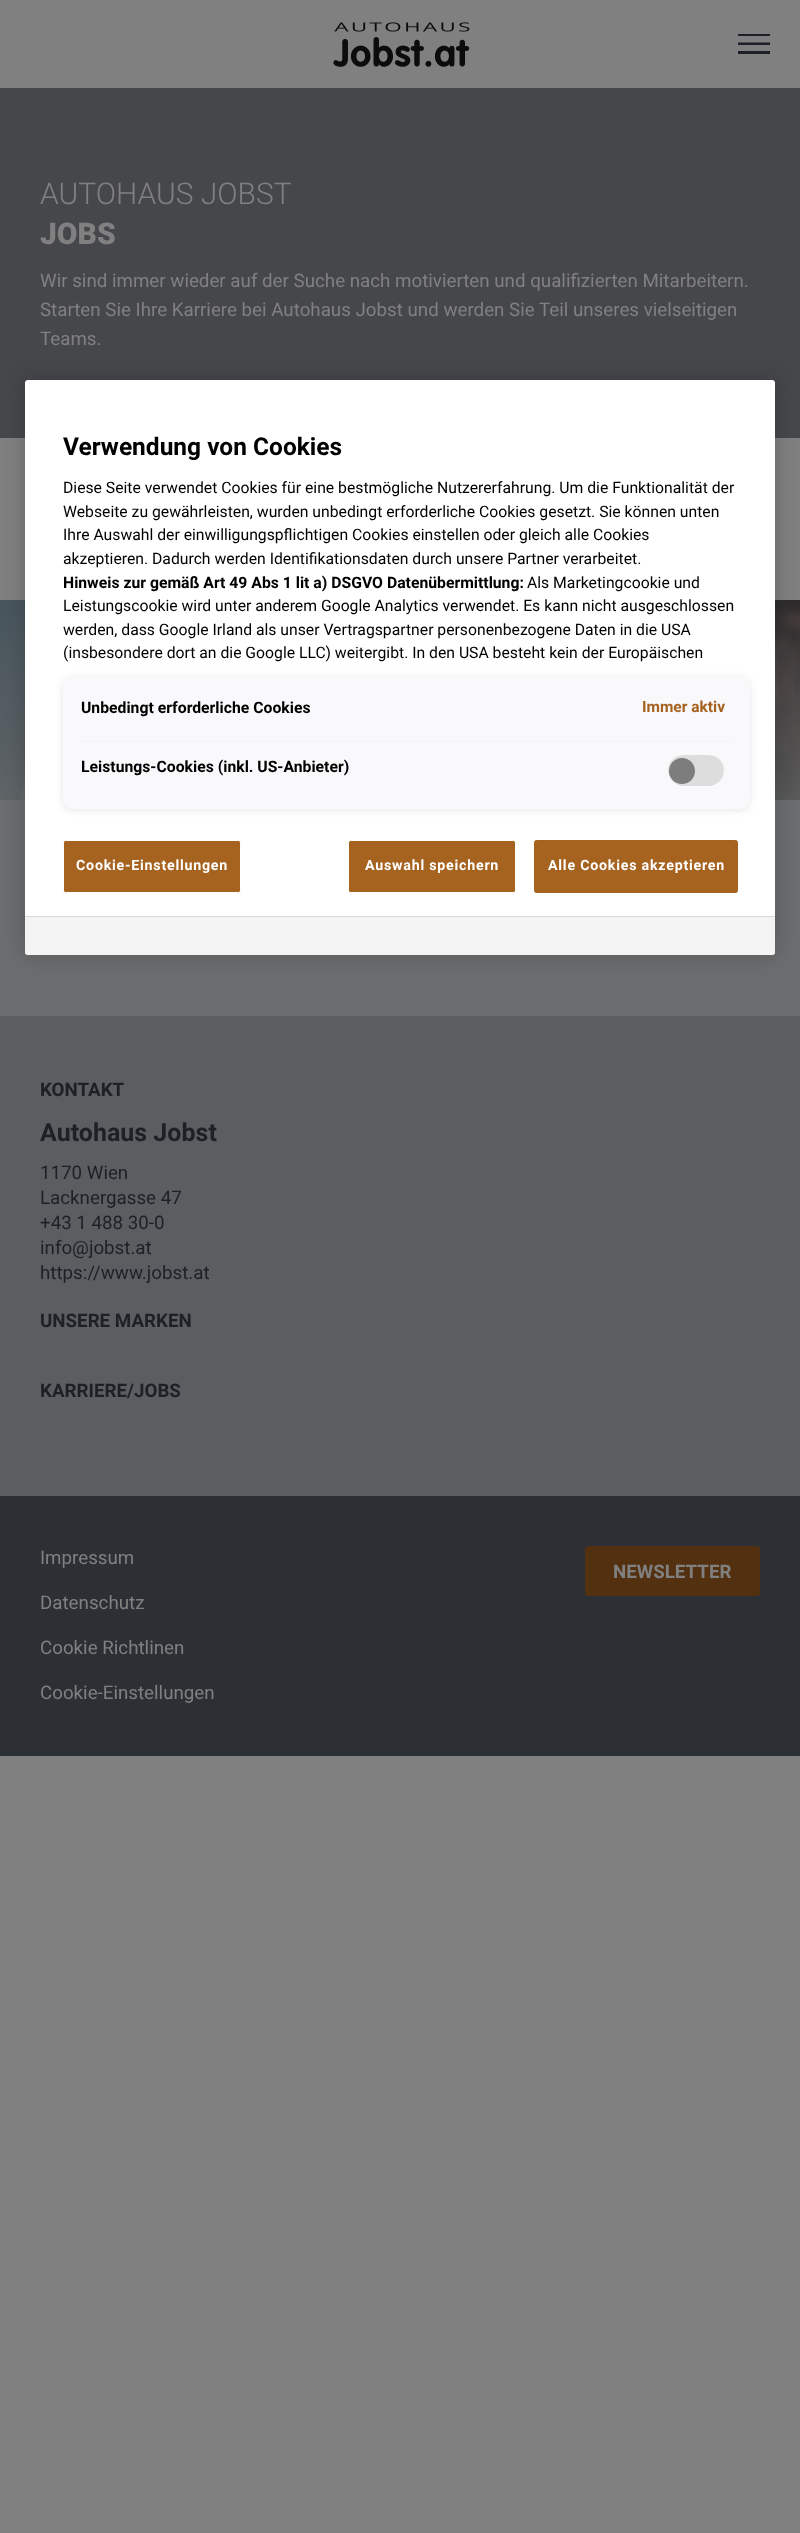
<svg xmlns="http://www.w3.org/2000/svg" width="800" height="2533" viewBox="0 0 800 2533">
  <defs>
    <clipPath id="clip1"><rect x="738" y="34" width="32" height="20"/></clipPath>
    <linearGradient id="g1" gradientUnits="userSpaceOnUse" x1="400" y1="600" x2="400" y2="800"><stop offset="0" stop-color="rgb(107,109,110)" stop-opacity="0"/><stop offset="1" stop-color="rgb(107,109,110)" stop-opacity="0.7"/></linearGradient>
  </defs>
  <rect width="100%" height="100%" fill="rgb(128,128,128)"/>
  <rect x="0" y="86" width="800" height="1" fill="rgb(124,125,125)"/>
  <image x="333" y="22" width="137" height="45" href="pic1.png"/>
  <g clip-path="url(#clip1)">
    <path d="M770 51V54H737.5V51ZM770 42.5V45H737.5V42.5ZM770 34V36H737.5V34Z" fill="rgb(29,33,39)" fill-rule="evenodd"/>
  </g>
  <rect x="0" y="88" width="800" height="350" fill="rgb(69,71,75)"/>
  <text x="40" y="204" font-family="Roboto" font-size="30" font-weight="300" fill="rgb(128,128,128)">AUTOHAUS JOBST</text>
  <text x="40" y="244" font-family="Roboto" font-size="30" font-weight="900" fill="rgb(128,128,128)">JOBS</text>
  <g font-family="Roboto" font-size="18.75" fill="rgb(128,128,128)">
    <text>
      <tspan x="40" y="287">Wir sind immer wieder auf der Suche nach motivierten und qualifizierten Mitarbeitern.</tspan>
      <tspan x="40" y="316">Starten Sie Ihre Karriere bei Autohaus Jobst und werden Sie Teil unseres vielseitigen</tspan>
      <tspan x="40" y="345">Teams.</tspan>
    </text>
  </g>
  <rect x="0" y="600" width="800" height="416" fill="rgb(107,109,110)"/>
  <image x="0" y="600" width="800" height="200" href="pic2.png"/>
  <rect x="0" y="609" width="800" height="191" fill="url(#g1)"/>
  <rect x="25" y="380" width="750" height="575" rx="3" fill="rgba(0,0,0,0.2)" filter="blur(11px)"/>
  <rect x="25" y="380" width="750" height="575" rx="3" fill="rgb(255,255,255)"/>
  <text x="63" y="455" font-family="Roboto" font-size="24.5" font-weight="bold" fill="rgb(0,0,0)">Verwendung von Cookies</text>
  <g font-family="Roboto" font-size="15.75" fill="rgb(0,0,0)">
    <text>
      <tspan x="63" y="493">Diese Seite verwendet Cookies für eine bestmögliche Nutzererfahrung. Um die Funktionalität der</tspan>
      <tspan x="63" y="517">Webseite zu gewährleisten, wurden unbedingt erforderliche Cookies gesetzt. Sie können unten</tspan>
      <tspan x="63" y="540">Ihre Auswahl der einwilligungspflichtigen Cookies einstellen oder gleich alle Cookies</tspan>
      <tspan x="63" y="564">akzeptieren. Dadurch werden Identifikationsdaten durch unsere Partner verarbeitet.</tspan>
    </text>
  </g>
  <text x="63" y="588" font-family="Roboto" font-size="15.75" font-weight="bold" fill="rgb(0,0,0)">Hinweis zur gemäß Art 49 Abs 1 lit a) DSGVO Datenübermittlung:</text>
  <g font-family="Roboto" font-size="15.75" fill="rgb(0,0,0)">
    <text x="527" y="588">Als Marketingcookie und</text>
    <text>
      <tspan x="63" y="611">Leistungscookie wird unter anderem Google Analytics verwendet. Es kann nicht ausgeschlossen</tspan>
      <tspan x="63" y="635">werden, dass Google Irland als unser Vertragspartner personenbezogene Daten in die USA</tspan>
      <tspan x="63" y="658">(insbesondere dort an die Google LLC) weitergibt. In den USA besteht kein der Europäischen</tspan>
    </text>
  </g>
  <rect x="63" y="678" width="687" height="132" rx="10" fill="rgba(0,0,0,0.1)" filter="blur(4px)"/>
  <rect x="63" y="676" width="687" height="133" rx="10" fill="rgb(249,249,252)"/>
  <rect x="81" y="741" width="650" height="1" fill="rgb(244,244,244)"/>
  <text x="81" y="713" font-family="Roboto" font-size="15.75" font-weight="bold" fill="rgb(0,0,0)">Unbedingt erforderliche Cookies</text>
  <text x="642" y="712" font-family="Roboto" font-size="15.5" font-weight="bold" fill="rgb(166,98,31)">Immer aktiv</text>
  <text x="81" y="772" font-family="Roboto" font-size="15.75" font-weight="bold" fill="rgb(0,0,0)">Leistungs-Cookies (inkl. US-Anbieter)</text>
  <path d="M684 755H708C717 755 724 762 724 770C724 779 717 786 708 786H684C675 786 668 779 668 770C668 762 675 755 684 755Z" fill="rgb(221,221,221)"/>
  <circle cx="682" cy="771" r="13" fill="rgb(125,125,125)"/>
  <rect x="63.5" y="840.5" width="177" height="52" rx="2" fill="rgb(166,98,31)" stroke="rgb(255,255,255)"/>
  <text x="76" y="870" font-family="Roboto" font-size="14.25" font-weight="bold" letter-spacing="0.75" fill="rgb(255,255,255)">Cookie-Einstellungen</text>
  <rect x="348.5" y="840.5" width="167" height="52" rx="2" fill="rgb(166,98,31)" stroke="rgb(255,255,255)"/>
  <text x="365" y="870" font-family="Roboto" font-size="14.25" font-weight="bold" letter-spacing="0.75" fill="rgb(255,255,255)">Auswahl speichern</text>
  <rect x="534.5" y="840.5" width="203" height="52" rx="2" fill="rgb(166,98,31)" stroke="rgb(166,98,31)"/>
  <text x="548" y="870" font-family="Roboto" font-size="14.25" font-weight="bold" letter-spacing="0.75" fill="rgb(255,255,255)">Alle Cookies akzeptieren</text>
  <path d="M25 916H775V952C775 953.5 773.5 955 772 955H28C26.5 955 25 953.5 25 952Z" fill="rgb(244,244,244)"/>
  <rect x="25" y="916" width="750" height="1" fill="rgb(216,216,216)"/>
  <rect x="0" y="1016" width="800" height="480" fill="rgb(91,93,96)"/>
  <text x="40" y="1096" font-family="Roboto" font-size="18.75" font-weight="bold" fill="rgb(29,33,39)">KONTAKT</text>
  <text x="40" y="1141" font-family="Roboto" font-size="25" font-weight="bold" fill="rgb(29,33,39)">Autohaus Jobst</text>
  <g font-family="Roboto" font-size="18.75" fill="rgb(29,33,39)">
    <text>
      <tspan x="40" y="1179">1170 Wien</tspan>
      <tspan x="40" y="1204">Lacknergasse 47</tspan>
      <tspan x="40" y="1229">+43 1 488 30-0</tspan>
      <tspan x="40" y="1254">info@jobst.at</tspan>
      <tspan x="40" y="1279">https://www.jobst.at</tspan>
    </text>
  </g>
  <g font-family="Roboto" font-size="18.75" font-weight="bold" fill="rgb(29,33,39)">
    <text x="40" y="1327">UNSERE MARKEN</text>
    <text x="40" y="1397">KARRIERE/JOBS</text>
  </g>
  <rect x="0" y="1496" width="800" height="260" fill="rgb(44,48,53)"/>
  <g font-family="Roboto" font-size="18.75" fill="rgb(128,128,128)">
    <text x="40" y="1564">Impressum</text>
    <text x="40" y="1609">Datenschutz</text>
    <text x="40" y="1654">Cookie Richtlinen</text>
    <text x="40" y="1699">Cookie-Einstellungen</text>
  </g>
  <rect x="585" y="1546" width="175" height="50" rx="4" fill="rgb(83,49,16)"/>
  <text x="613" y="1578" font-family="Roboto" font-size="18.75" font-weight="bold" fill="rgb(128,128,128)">NEWSLETTER</text>
</svg>
